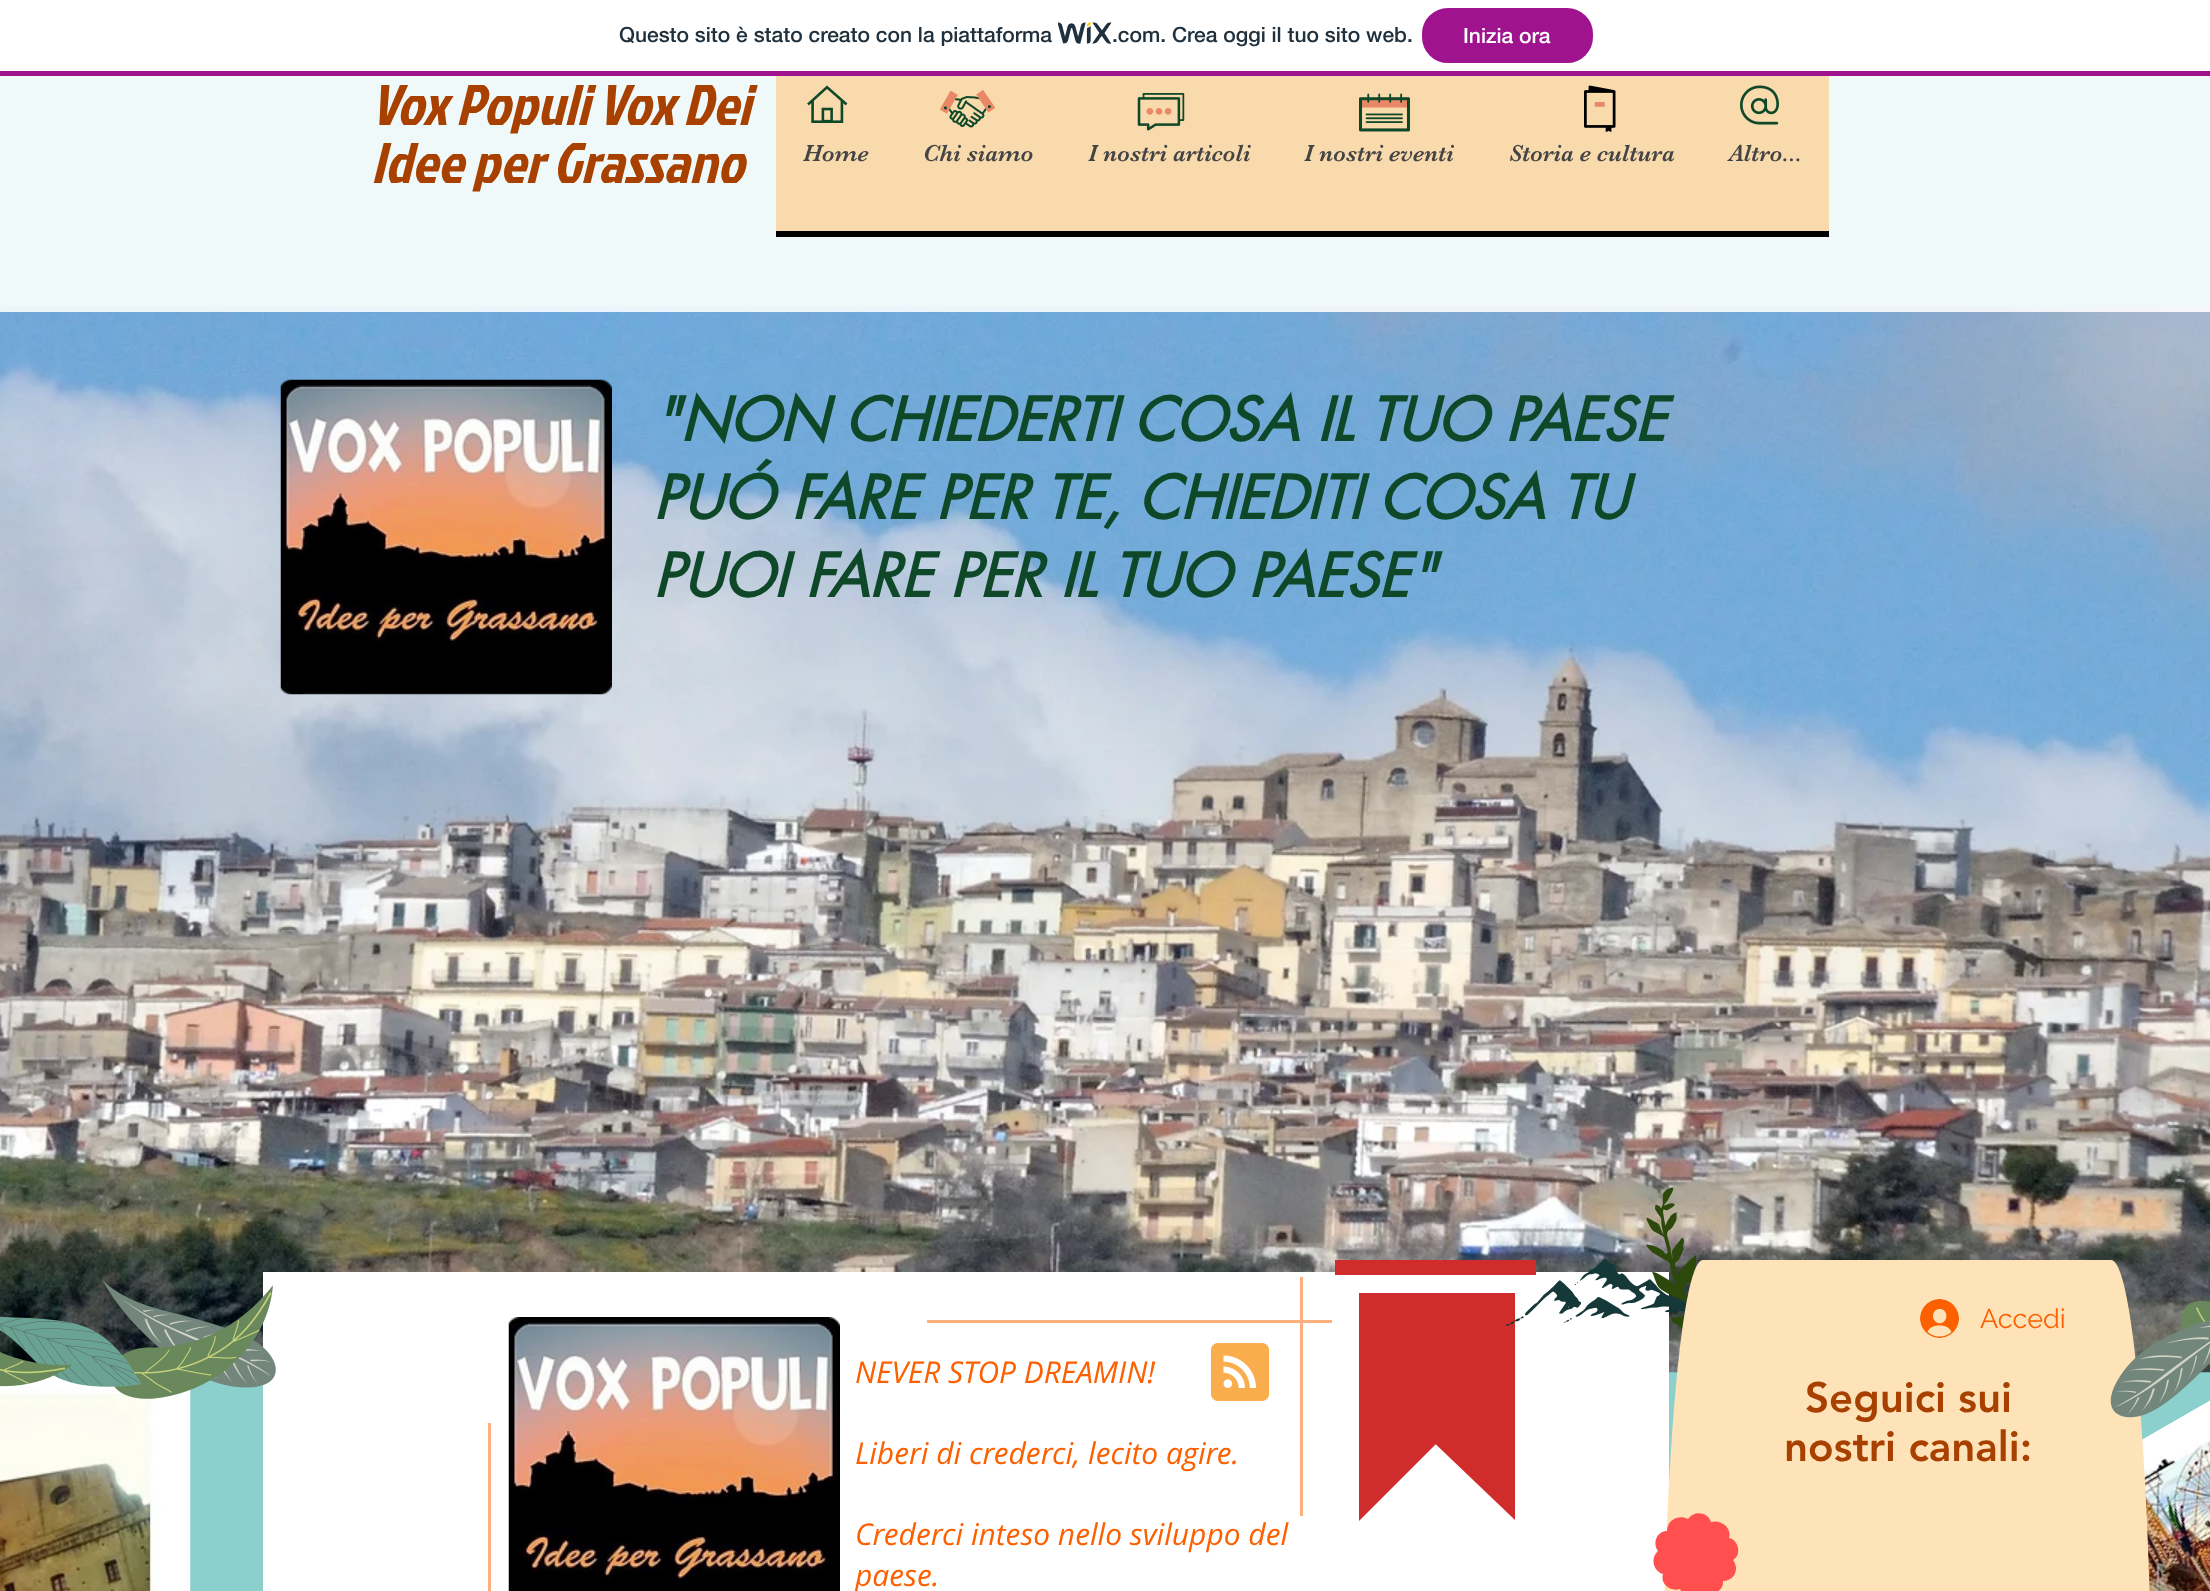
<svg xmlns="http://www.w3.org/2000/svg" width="2210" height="1591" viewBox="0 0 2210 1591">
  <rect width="100%" height="100%" fill="rgb(255,255,255)"/>
  <rect x="0" y="71" width="2210" height="5" fill="rgb(160,19,142)"/>
  <text x="619" y="42" font-family="'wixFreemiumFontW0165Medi'" font-size="21" font-weight="500" fill="rgb(32,48,60)">Questo sito è stato creato con la piattaforma</text>
  <image x="1058" y="22" width="54" height="22" href="pic1.png"/>
  <text x="1112" y="42" font-family="'wixFreemiumFontW0165Medi'" font-size="21" font-weight="500" fill="rgb(32,48,60)">.com. Crea oggi il tuo sito web.</text>
  <rect x="1423" y="9" width="169" height="53" rx="25" fill="rgb(160,19,142)" stroke="rgb(160,19,142)" stroke-width="2"/>
  <text x="1463" y="43" font-family="'wixFreemiumFontW0165Medi'" font-size="21" font-weight="500" fill="rgb(255,255,255)">Inizia ora</text>
  <rect x="0" y="76" width="2210" height="1515" fill="rgb(139,208,205)"/>
  <image x="0" y="306" width="2210" height="1067" href="pic8.png"/>
  <rect x="0" y="76" width="2210" height="236" fill="rgba(255,255,255,0.87)"/>
  <g font-family="Jockey One" font-size="57" font-style="italic" fill="rgb(168,64,0)">
    <text>
      <tspan x="371" y="125">Vox Populi Vox Dei</tspan>
      <tspan x="371" y="183">Idee per Grassano</tspan>
    </text>
  </g>
  <path d="M776 231V237H1829V81H1828V231Z" fill="rgb(0,0,0)"/>
  <rect x="776" y="76" width="1053" height="155" fill="rgb(248,218,172)"/>
  <image x="807" y="85" width="41" height="38" href="pic2.png"/>
  <image x="939" y="90" width="57" height="38" href="pic3.png"/>
  <image x="1137" y="93" width="48" height="38" href="pic4.png"/>
  <image x="1359" y="93" width="51" height="39" href="pic5.png"/>
  <image x="1584" y="85" width="32" height="47" href="pic6.png"/>
  <image x="1740" y="85" width="39" height="40" href="pic7.png"/>
  <g font-family="'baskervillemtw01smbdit'" font-size="24" fill="rgb(68,68,68)">
    <text x="803" y="161">Home</text>
    <text x="923" y="161">Chi siamo</text>
    <text x="1088" y="161">I nostri articoli</text>
    <text x="1304" y="161">I nostri eventi</text>
    <text x="1509" y="161">Storia e cultura</text>
    <text x="1729" y="161">Altro...</text>
  </g>
  <rect x="263" y="1272" width="1406" height="319" fill="rgb(255,255,255)"/>
  <image x="1646" y="1187" width="51" height="142" href="pic9.png"/>
  <rect x="1335" y="1260" width="201" height="15" fill="rgb(209,44,44)"/>
  <path d="M1359 1371H1515V1520Z" fill="rgb(209,44,44)"/>
  <rect x="1359" y="1293" width="156" height="123" fill="rgb(209,44,44)"/>
  <image x="1506" y="1258" width="181" height="68" href="pic10.png"/>
  <image x="0" y="1375" width="191" height="216" href="pic11.png"/>
  <image x="2142" y="1400" width="68" height="191" href="pic12.png"/>
  <path d="M1359 1521V1416H1464Z" fill="rgb(209,44,44)"/>
  <image x="280" y="379" width="332" height="316" href="pic13.png"/>
  <g font-family="futura" font-size="58.5" font-weight="bold" font-style="italic" fill="rgb(14,72,40)">
    <text>
      <tspan x="653" y="441">"NON CHIEDERTI COSA IL TUO PAESE</tspan>
      <tspan x="653" y="519">PUÓ FARE PER TE, CHIEDITI COSA TU</tspan>
      <tspan x="653" y="597">PUOI FARE PER IL TUO PAESE"</tspan>
    </text>
  </g>
  <image x="508" y="1317" width="332" height="274" href="pic14.png"/>
  <rect x="927" y="1320" width="405" height="3" fill="rgb(253,175,126)"/>
  <rect x="1300" y="1277" width="3" height="239" fill="rgb(253,175,126)"/>
  <image x="1211" y="1343" width="58" height="58" href="pic15.png"/>
  <rect x="488" y="1423" width="3" height="168" fill="rgb(253,175,126)"/>
  <g font-family="Open Sans" font-size="30" font-style="italic" fill="rgb(252,96,0)">
    <text x="855" y="1383">NEVER STOP DREAMIN!</text>
    <text x="855" y="1464">Liberi di crederci, lecito agire.</text>
    <text>
      <tspan x="855" y="1545">Crederci inteso nello sviluppo del</tspan>
      <tspan x="855" y="1586">paese.</tspan>
    </text>
  </g>
  <image x="102" y="1280" width="174" height="108" href="pic16.png"/>
  <path d="M2111 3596H1703C1681 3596 1662 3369 1662 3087V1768C1662 1490 1680 1260 1703 1260H2111C2134 1260 2152 1487 2152 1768V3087C2152 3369 2134 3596 2111 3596Z" fill="rgb(255,227,184)"/>
  <image x="114" y="1285" width="159" height="114" href="pic18.png"/>
  <image x="0" y="1316" width="142" height="71" href="pic17.png"/>
  <image x="1920" y="1299" width="39" height="39" href="pic19.png"/>
  <text x="1980" y="1328" font-family="Raleway" font-size="27" fill="rgb(252,96,0)">Accedi</text>
  <image x="2181" y="1301" width="29" height="64" href="pic20.png"/>
  <image x="0" y="1352" width="72" height="35" href="pic21.png"/>
  <image x="2110" y="1320" width="100" height="98" href="pic22.png"/>
  <g font-family="'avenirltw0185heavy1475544'" font-size="42" font-weight="900" fill="rgb(168,64,0)">
    <text x="1805" y="1412">Seguici sui</text>
    <text x="1784" y="1461">nostri canali:</text>
  </g>
  <path d="M1738 1548C1737 1543 1734 1539 1729 1538C1732 1528 1721 1519 1711 1522C1708 1512 1694 1510 1688 1519C1679 1514 1667 1520 1667 1531C1657 1531 1652 1543 1658 1551C1650 1558 1653 1571 1663 1574C1660 1584 1670 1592 1680 1589C1684 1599 1697 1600 1703 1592C1712 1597 1724 1591 1723 1581C1734 1581 1740 1569 1733 1560C1737 1558 1739 1553 1738 1548" fill="rgb(255,79,79)" fill-rule="evenodd"/>
</svg>
